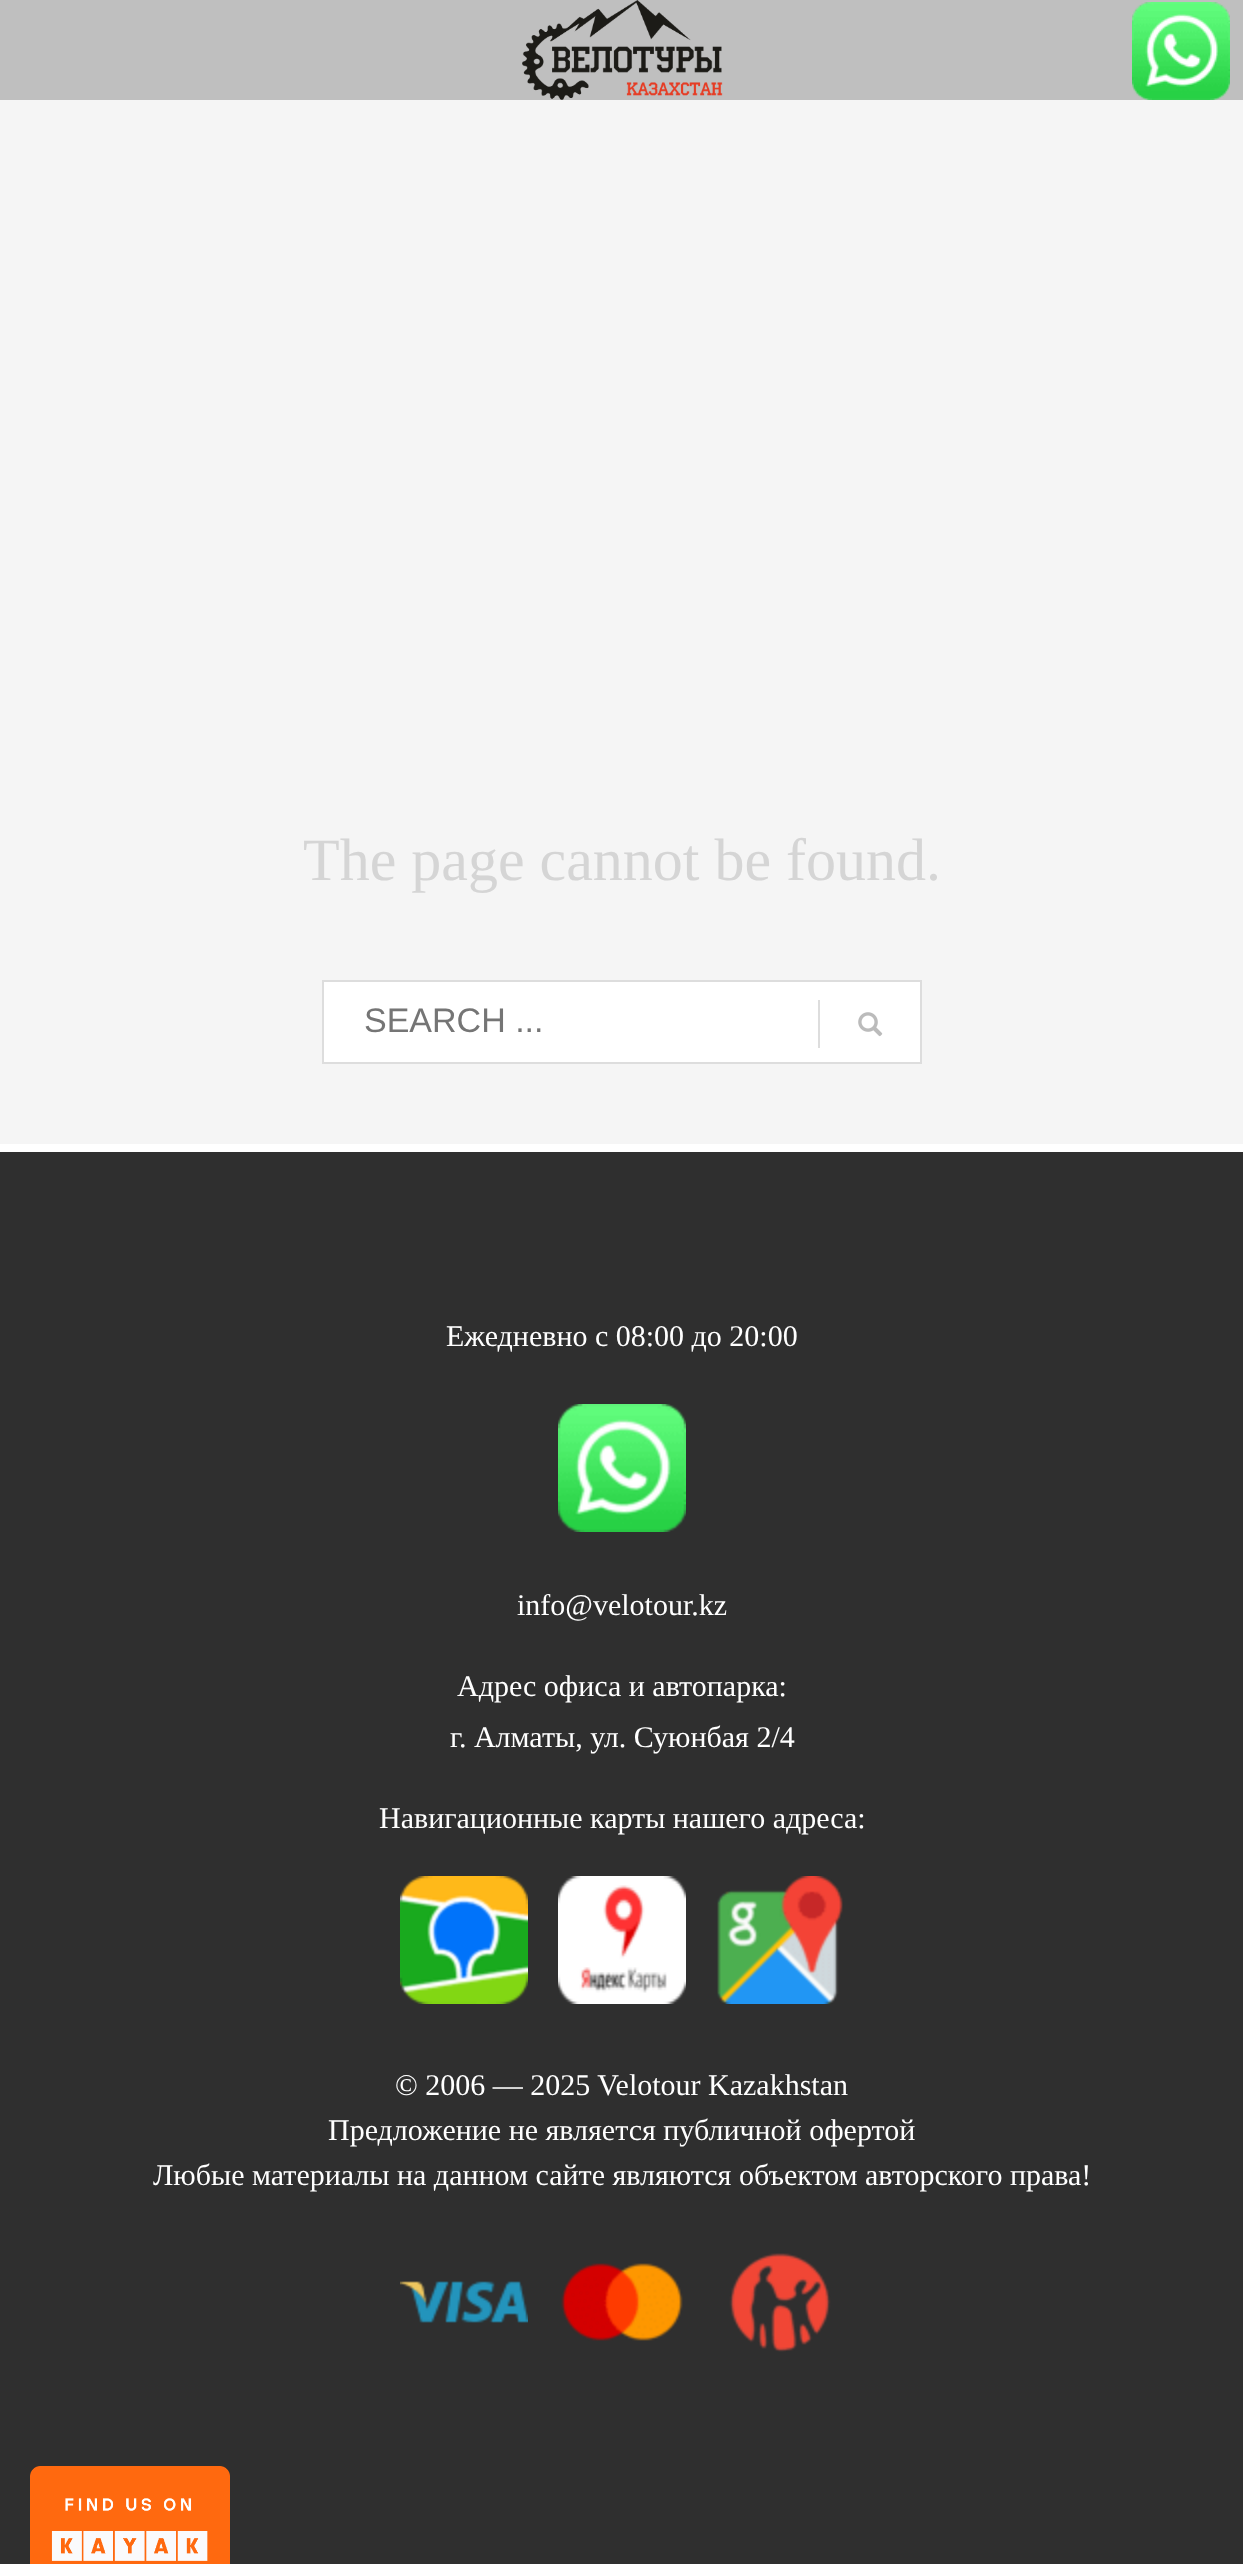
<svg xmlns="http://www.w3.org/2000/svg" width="1243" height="2564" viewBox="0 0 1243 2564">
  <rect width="100%" height="100%" fill="rgb(245,245,245)"/>
  <rect x="0" y="0" width="1243" height="100" fill="rgb(191,191,191)"/>
  <image x="522" y="0" width="201" height="100" href="pic1.png"/>
  <image x="1132" y="2" width="98" height="98" href="pic2.png"/>
  <text x="303" y="880" font-family="Liberation Serif" font-size="60" fill="rgb(213,213,213)">The page cannot be found.</text>
  <rect x="323" y="981" width="598" height="82" fill="rgb(255,255,255)" stroke="rgb(221,221,221)" stroke-width="2"/>
  <text x="364" y="1032" font-family="Liberation Sans" font-size="34" fill="rgb(117,117,117)">SEARCH ...</text>
  <rect x="818" y="1000" width="2" height="48" fill="rgb(221,221,221)"/>
  <image x="858" y="1012" width="25" height="25" href="pic3.png"/>
  <rect x="0" y="1152" width="1243" height="1412" fill="rgb(47,47,47)"/>
  <rect x="0" y="1144" width="1243" height="8" fill="rgb(255,255,255)"/>
  <text x="446" y="1346" font-family="Liberation Serif" font-size="30" fill="rgb(255,255,255)">Ежедневно с 08:00 до 20:00</text>
  <image x="558" y="1404" width="128" height="128" href="pic4.png"/>
  <g font-family="Liberation Serif" font-size="30" fill="rgb(255,255,255)">
    <text x="517" y="1615">info@velotour.kz</text>
    <text x="457" y="1696">Адрес офиса и автопарка:</text>
    <text x="450" y="1747">г. Алматы, ул. Суюнбая 2/4</text>
    <text x="379" y="1828">Навигационные карты нашего адреса:</text>
  </g>
  <image x="400" y="1876" width="128" height="128" href="pic5.png"/>
  <image x="558" y="1876" width="128" height="128" href="pic6.png"/>
  <image x="717" y="1876" width="126" height="128" href="pic7.png"/>
  <g font-family="Liberation Serif" font-size="30" fill="rgb(255,255,255)">
    <text x="395" y="2095">© 2006 — 2025 Velotour Kazakhstan</text>
    <text x="328" y="2140">Предложение не является публичной офертой</text>
    <text x="153" y="2185">Любые материалы на данном сайте являются объектом авторского права!</text>
  </g>
  <image x="400" y="2281" width="128" height="42" href="pic8.png"/>
  <image x="561" y="2263" width="122" height="78" href="pic9.png"/>
  <image x="729" y="2253" width="102" height="99" href="pic10.png"/>
  <image x="30" y="2466" width="200" height="98" href="pic11.png"/>
</svg>
